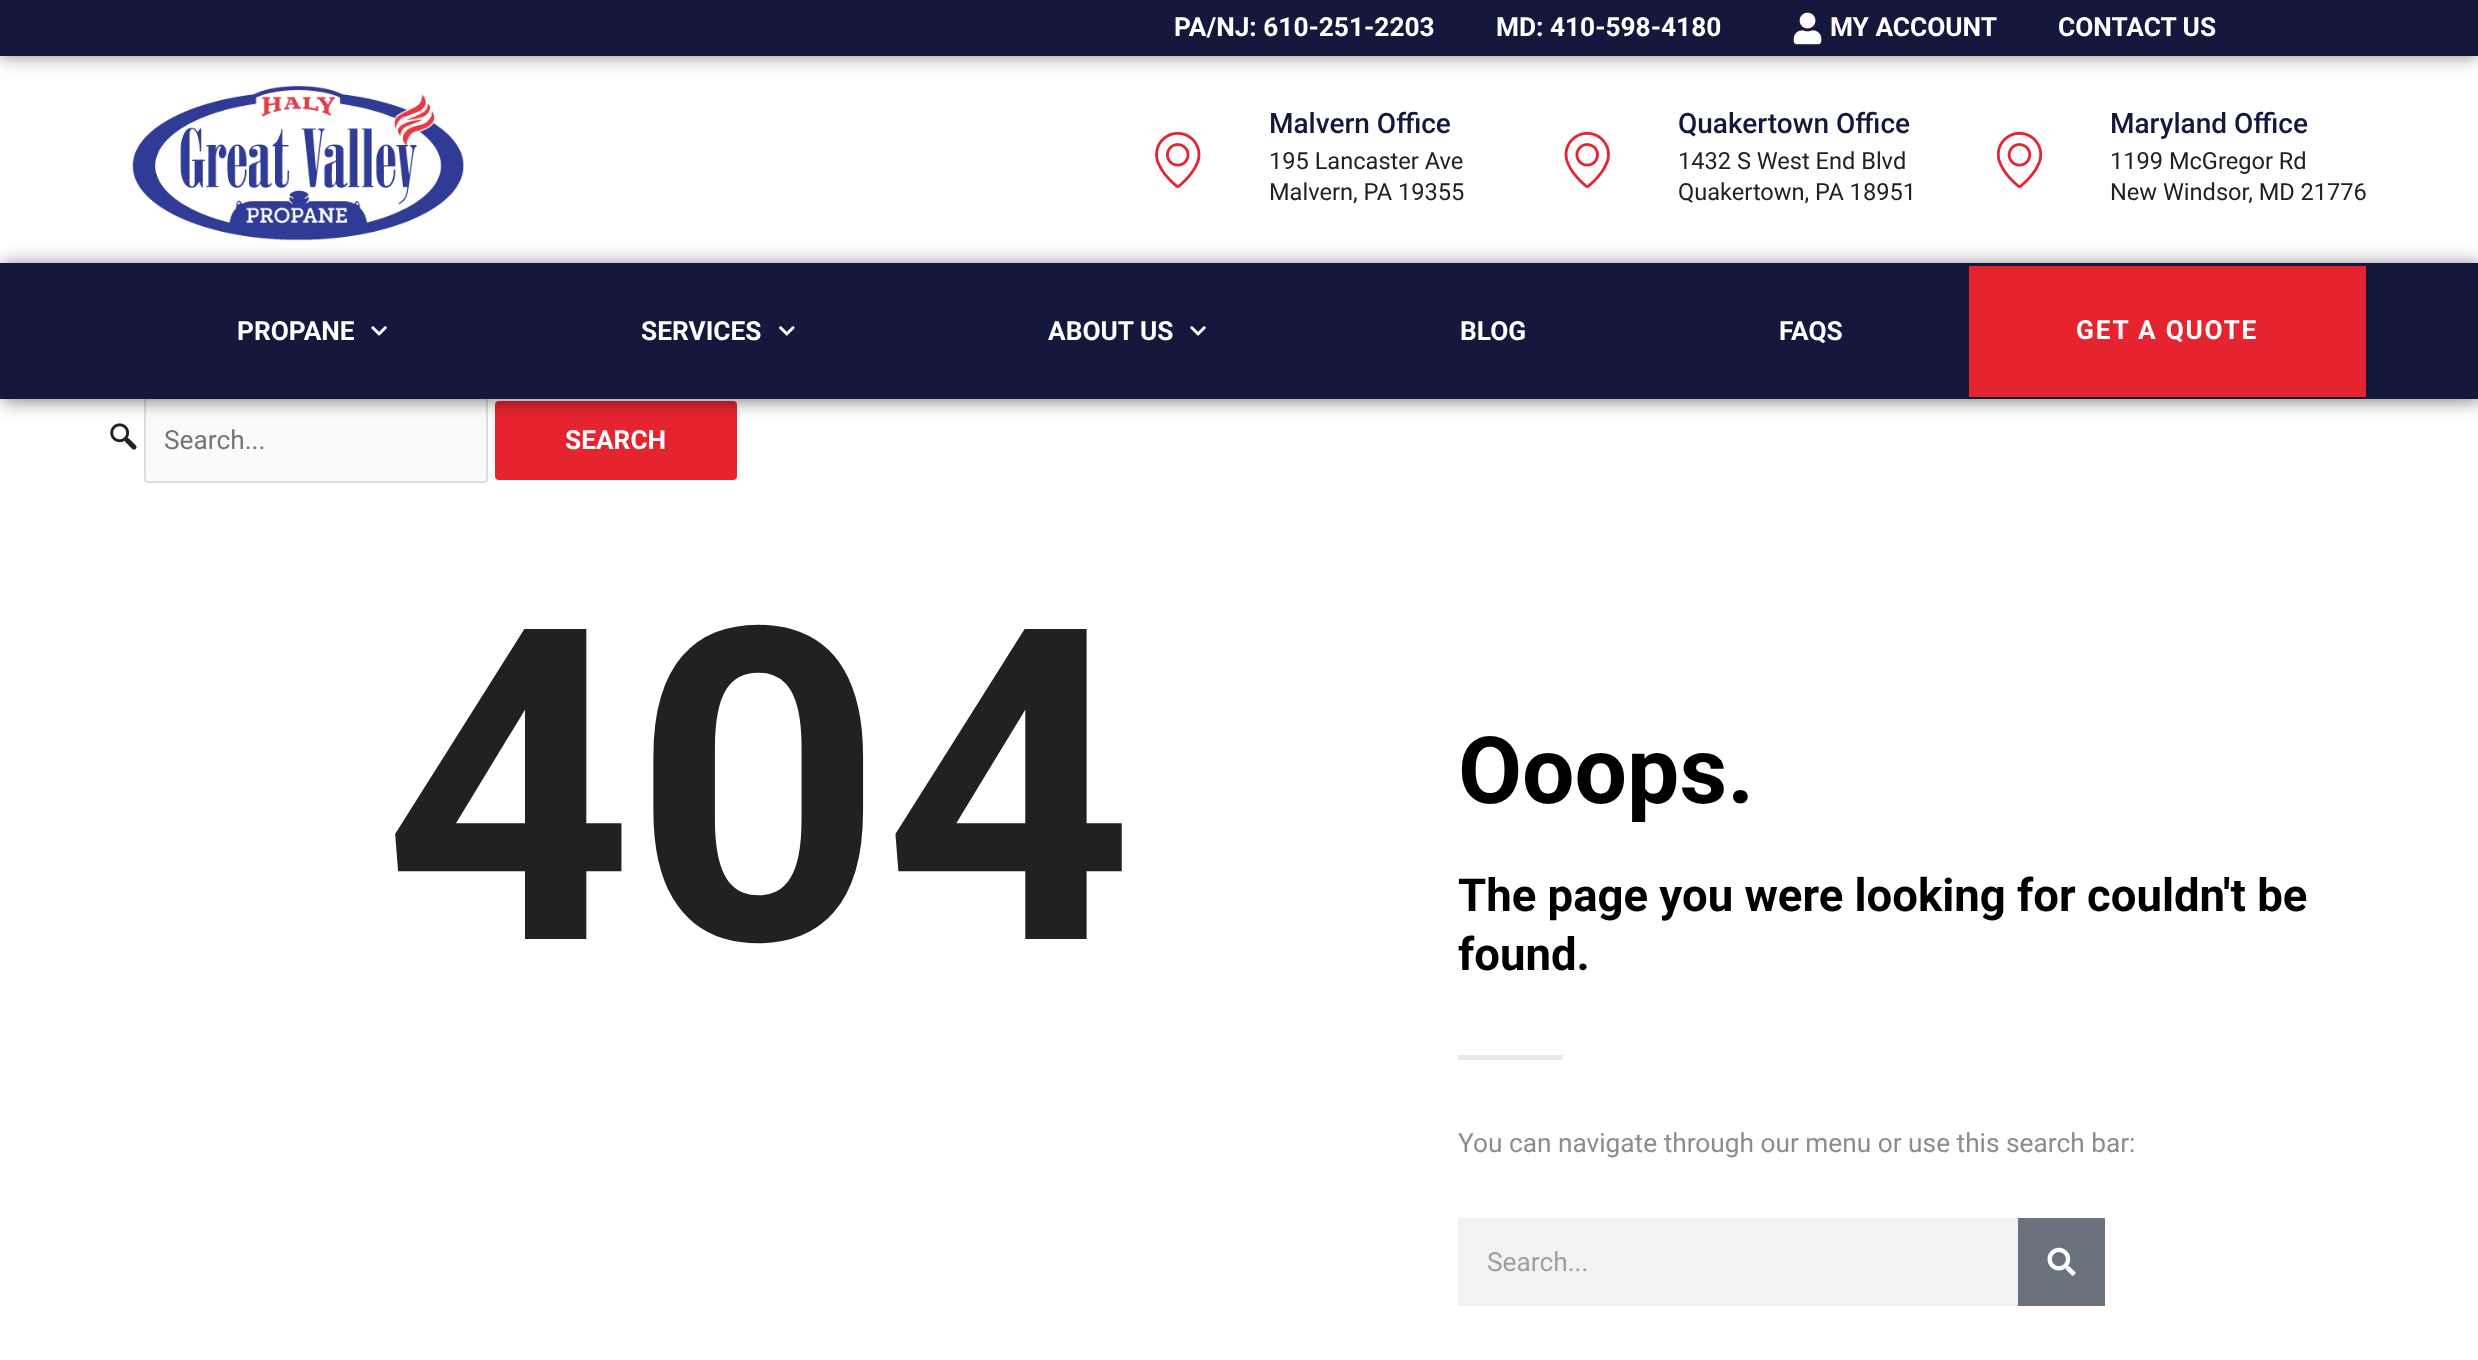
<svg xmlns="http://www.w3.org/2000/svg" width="2478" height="1360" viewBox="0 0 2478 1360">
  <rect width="100%" height="100%" fill="rgb(255,255,255)"/>
  <rect x="0" y="0" width="2478" height="56" fill="rgba(0,0,0,0.5)" filter="blur(9px)"/>
  <rect x="0" y="0" width="2478" height="56" fill="rgb(19,24,60)"/>
  <g font-family="Roboto" font-size="26.25" font-weight="bold" fill="rgb(255,255,255)">
    <text x="1174" y="36">PA/NJ: 610-251-2203</text>
    <text x="1496" y="36">MD: 410-598-4180</text>
  </g>
  <image x="1793" y="12" width="29" height="33" href="pic1.png"/>
  <g font-family="Roboto" font-size="26.25" font-weight="bold" fill="rgb(255,255,255)">
    <text x="1830" y="36">MY ACCOUNT</text>
    <text x="2058" y="36">CONTACT US</text>
  </g>
  <image x="132" y="85" width="332" height="156" href="pic2.png"/>
  <image x="1155" y="131" width="46" height="57" href="pic3.png"/>
  <text x="1269" y="133" font-family="Roboto" font-size="28" font-weight="500" fill="rgb(19,24,60)">Malvern Office</text>
  <g font-family="Roboto" font-size="23.6" fill="rgb(33,33,33)">
    <text>
      <tspan x="1269" y="169">195 Lancaster Ave</tspan>
      <tspan x="1269" y="200">Malvern, PA 19355</tspan>
    </text>
  </g>
  <image x="1564" y="131" width="46" height="57" href="pic4.png"/>
  <text x="1678" y="133" font-family="Roboto" font-size="28" font-weight="500" fill="rgb(19,24,60)">Quakertown Office</text>
  <g font-family="Roboto" font-size="23.6" fill="rgb(33,33,33)">
    <text>
      <tspan x="1678" y="169">1432 S West End Blvd</tspan>
      <tspan x="1678" y="200">Quakertown, PA 18951</tspan>
    </text>
  </g>
  <image x="1996" y="131" width="47" height="57" href="pic5.png"/>
  <text x="2110" y="133" font-family="Roboto" font-size="28" font-weight="500" fill="rgb(19,24,60)">Maryland Office</text>
  <g font-family="Roboto" font-size="23.6" fill="rgb(33,33,33)">
    <text>
      <tspan x="2110" y="169">1199 McGregor Rd</tspan>
      <tspan x="2110" y="200">New Windsor, MD 21776</tspan>
    </text>
  </g>
  <image x="110" y="423" width="27" height="27" href="pic8.png"/>
  <rect x="145" y="398" width="342" height="84" rx="3" fill="rgb(250,250,250)" stroke="rgb(221,221,221)" stroke-width="2"/>
  <rect x="495" y="401" width="242" height="79" rx="4" fill="rgb(229,36,48)"/>
  <rect x="2" y="264" width="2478" height="137" fill="rgba(0,0,0,0.5)" filter="blur(9px)"/>
  <rect x="0" y="263" width="2478" height="136" fill="rgb(19,24,60)"/>
  <text x="237" y="340" font-family="Roboto" font-size="26.25" font-weight="bold" fill="rgb(255,255,255)">PROPANE</text>
  <image x="371" y="326" width="16" height="10" href="pic6.png"/>
  <text x="641" y="340" font-family="Roboto" font-size="26.25" font-weight="bold" fill="rgb(255,255,255)">SERVICES</text>
  <image x="779" y="326" width="16" height="10" href="pic7.png"/>
  <text x="1048" y="340" font-family="Roboto" font-size="26.25" font-weight="bold" fill="rgb(255,255,255)">ABOUT US</text>
  <image x="1190" y="326" width="16" height="10" href="pic6.png"/>
  <g font-family="Roboto" font-size="26.25" font-weight="bold" fill="rgb(255,255,255)">
    <text x="1460" y="340">BLOG</text>
    <text x="1779" y="340">FAQS</text>
  </g>
  <rect x="1969" y="266" width="397" height="131" fill="rgb(229,36,48)"/>
  <text x="2076" y="339" font-family="Roboto" font-size="26.25" font-weight="bold" letter-spacing="1.75" fill="rgb(255,255,255)">GET A QUOTE</text>
  <text x="164" y="449" font-family="Roboto" font-size="26.25" fill="rgb(117,117,117)">Search...</text>
  <text x="565" y="449" font-family="Roboto" font-size="26.25" font-weight="bold" fill="rgb(255,255,255)">SEARCH</text>
  <text x="383" y="939" font-family="Roboto" font-size="436" font-weight="bold" fill="rgb(33,33,33)">404</text>
  <text x="1458" y="803" font-family="Roboto" font-size="93" font-weight="bold" fill="rgb(0,0,0)">Ooops.</text>
  <g font-family="Roboto" font-size="45.5" font-weight="bold" fill="rgb(0,0,0)">
    <text>
      <tspan x="1458" y="911">The page you were looking for couldn't be</tspan>
      <tspan x="1458" y="970">found.</tspan>
    </text>
  </g>
  <rect x="1458" y="1055" width="105" height="5" fill="rgb(232,232,232)"/>
  <text x="1458" y="1152" font-family="Roboto" font-size="26.25" fill="rgb(140,140,140)">You can navigate through our menu or use this search bar:</text>
  <rect x="1458" y="1218" width="560" height="88" fill="rgb(241,242,243)"/>
  <text x="1487" y="1271" font-family="Roboto" font-size="26.25" fill="rgb(158,158,158)">Search...</text>
  <rect x="2018" y="1218" width="87" height="88" fill="rgb(105,114,125)"/>
  <image x="2047" y="1247" width="29" height="29" href="pic9.png"/>
</svg>
